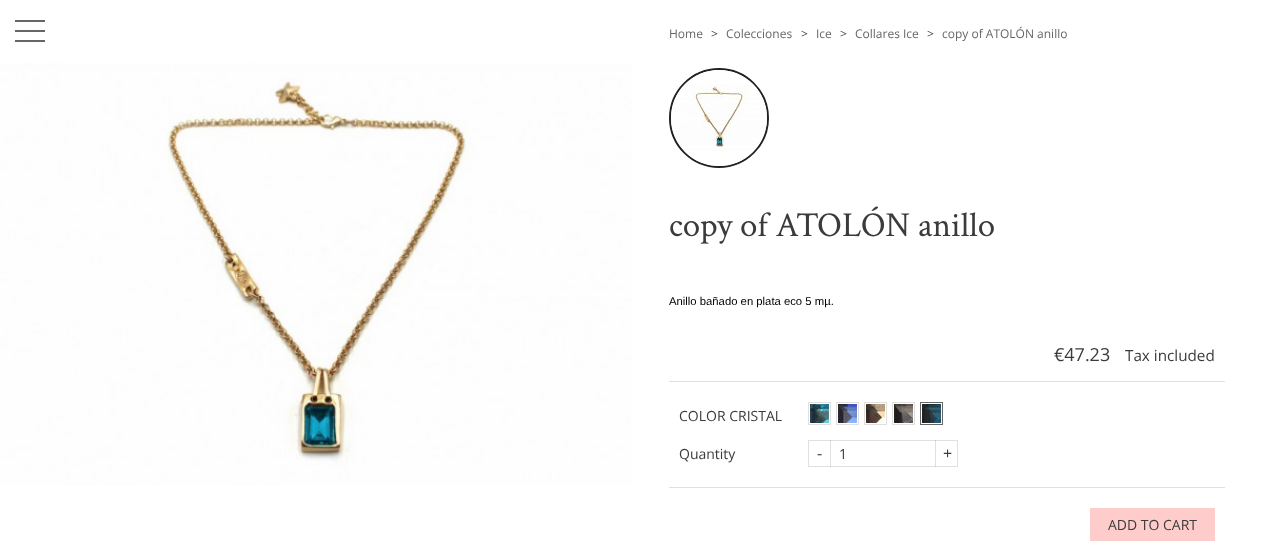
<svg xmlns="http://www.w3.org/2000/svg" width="1263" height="548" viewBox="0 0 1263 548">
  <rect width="100%" height="100%" fill="rgb(255,255,255)"/>
  <image x="0" y="0" width="632" height="548" href="pic1.png"/>
  <rect x="15" y="20" width="30" height="2" fill="rgb(102,102,102)"/>
  <rect x="15" y="30" width="30" height="2" fill="rgb(102,102,102)"/>
  <rect x="15" y="40" width="30" height="2" fill="rgb(102,102,102)"/>
  <text x="669" y="38" font-family="Open Sans" font-size="12" fill="rgb(102,102,102)">Home</text>
  <text x="711" y="38" font-family="Open Sans" font-size="12" fill="rgb(59,59,59)">&gt;</text>
  <text x="726" y="38" font-family="Open Sans" font-size="12" fill="rgb(102,102,102)">Colecciones</text>
  <text x="801" y="38" font-family="Open Sans" font-size="12" fill="rgb(59,59,59)">&gt;</text>
  <text x="816" y="38" font-family="Open Sans" font-size="12" fill="rgb(102,102,102)">Ice</text>
  <text x="840" y="38" font-family="Open Sans" font-size="12" fill="rgb(59,59,59)">&gt;</text>
  <text x="855" y="38" font-family="Open Sans" font-size="12" fill="rgb(102,102,102)">Collares Ice</text>
  <text x="927" y="38" font-family="Open Sans" font-size="12" fill="rgb(59,59,59)">&gt;</text>
  <text x="942" y="38" font-family="Open Sans" font-size="12" fill="rgb(102,102,102)">copy of ATOLÓN anillo</text>
  <circle cx="719" cy="118" r="49" fill="none" stroke="rgb(33,33,33)" stroke-width="2"/>
  <image x="671" y="70" width="96" height="96" href="pic2.png"/>
  <text x="669" y="236" font-family="Crimson Text" font-size="35" fill="rgb(59,59,59)">copy of ATOLÓN anillo</text>
  <text x="669" y="305" font-family="Liberation Sans" font-size="11.3" fill="rgb(0,0,0)">Anillo bañado en plata eco 5 mµ.</text>
  <text x="1054" y="361" font-family="Open Sans" font-size="18" fill="rgb(59,59,59)">€47.23</text>
  <text x="1125" y="361" font-family="Open Sans" font-size="15.25" fill="rgb(59,59,59)">Tax included</text>
  <rect x="669" y="381" width="556" height="1" fill="rgb(224,224,224)"/>
  <text x="679" y="421" font-family="Open Sans" font-size="14" fill="rgb(59,59,59)">COLOR CRISTAL</text>
  <image x="810" y="404" width="19" height="19" href="pic3.png"/>
  <rect x="808.5" y="402.5" width="22" height="22" fill="none" stroke="rgb(224,224,224)"/>
  <image x="838" y="404" width="19" height="19" href="pic4.png"/>
  <rect x="836.5" y="402.5" width="22" height="22" fill="none" stroke="rgb(224,224,224)"/>
  <image x="866" y="404" width="19" height="19" href="pic5.png"/>
  <rect x="864.5" y="402.5" width="22" height="22" fill="none" stroke="rgb(224,224,224)"/>
  <image x="894" y="404" width="19" height="19" href="pic6.png"/>
  <rect x="892.5" y="402.5" width="22" height="22" fill="none" stroke="rgb(224,224,224)"/>
  <image x="922" y="404" width="19" height="19" href="pic7.png"/>
  <rect x="920.5" y="402.5" width="22" height="22" fill="none" stroke="rgb(102,102,102)"/>
  <text x="679" y="459" font-family="Open Sans" font-size="14" fill="rgb(59,59,59)">Quantity</text>
  <rect x="808.5" y="440.5" width="149" height="26" fill="none" stroke="rgb(224,224,224)"/>
  <rect x="830" y="440" width="1" height="27" fill="rgba(102,102,102,0.2)"/>
  <text x="817" y="459" font-family="Open Sans" font-size="16" fill="rgb(59,59,59)">-</text>
  <text x="839" y="459" font-family="Open Sans" font-size="14" fill="rgb(59,59,59)">1</text>
  <rect x="935" y="440" width="1" height="27" fill="rgba(102,102,102,0.2)"/>
  <text x="943" y="459" font-family="Open Sans" font-size="16" fill="rgb(59,59,59)">+</text>
  <rect x="669" y="487" width="556" height="1" fill="rgb(224,224,224)"/>
  <rect x="1090" y="508" width="125" height="33" fill="rgb(255,204,204)"/>
  <text x="1108" y="530" font-family="Open Sans" font-size="14" fill="rgb(59,59,59)">ADD TO CART</text>
</svg>
